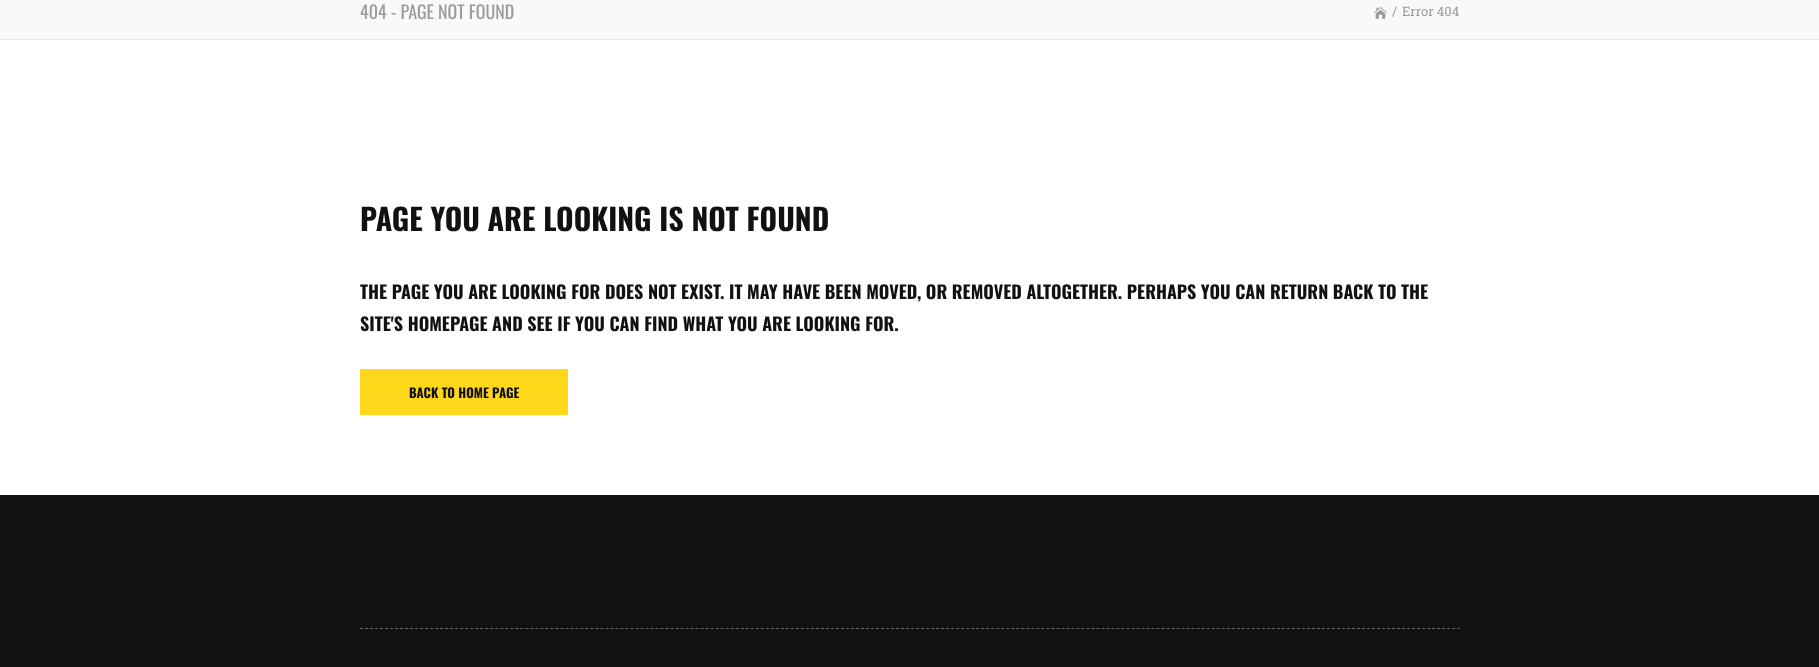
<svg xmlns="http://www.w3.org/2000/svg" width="1819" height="667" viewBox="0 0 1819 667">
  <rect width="100%" height="100%" fill="rgb(255,255,255)"/>
  <rect x="0" y="0" width="1819" height="39" fill="rgb(249,249,248)"/>
  <rect x="0" y="39" width="1819" height="1" fill="rgb(233,233,232)"/>
  <text x="360" y="19" font-family="Oswald" font-size="18" fill="rgb(155,155,155)">404 - PAGE NOT FOUND</text>
  <image x="1374" y="7" width="13" height="12" href="pic1.png"/>
  <g font-family="Roboto Slab" font-size="13" fill="rgb(155,155,155)">
    <text x="1392" y="16">/</text>
    <text x="1402" y="16">Error 404</text>
  </g>
  <text x="360" y="231" font-family="Oswald" font-size="30" font-weight="bold" fill="rgb(17,17,17)">PAGE YOU ARE LOOKING IS NOT FOUND</text>
  <g font-family="Oswald" font-size="18" font-weight="bold" fill="rgb(17,17,17)">
    <text>
      <tspan x="360" y="299">THE PAGE YOU ARE LOOKING FOR DOES NOT EXIST. IT MAY HAVE BEEN MOVED, OR REMOVED ALTOGETHER. PERHAPS YOU CAN RETURN BACK TO THE</tspan>
      <tspan x="360" y="331">SITE'S HOMEPAGE AND SEE IF YOU CAN FIND WHAT YOU ARE LOOKING FOR.</tspan>
    </text>
  </g>
  <rect x="360" y="369" width="208" height="46" fill="rgb(255,215,27)"/>
  <text x="409" y="398" font-family="Oswald" font-size="13" font-weight="bold" fill="rgb(17,17,17)">BACK TO HOME PAGE</text>
  <rect x="0" y="495" width="1819" height="172" fill="rgb(17,17,17)"/>
  <path d="M360 628.5H1460" fill="none" stroke="rgb(102,102,102)" stroke-dasharray="3 2.01"/>
</svg>
